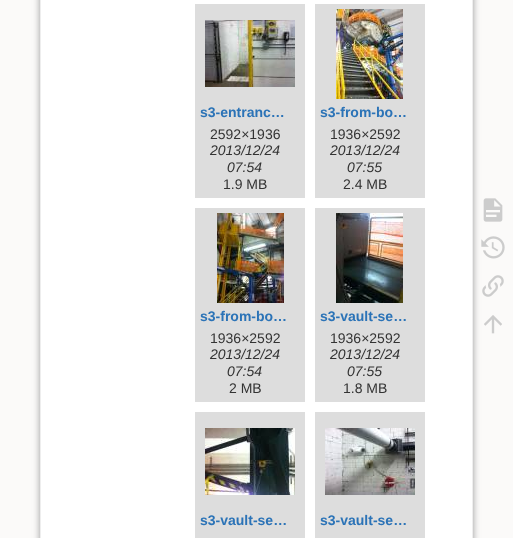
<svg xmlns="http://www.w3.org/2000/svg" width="513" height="538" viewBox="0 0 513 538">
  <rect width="100%" height="100%" fill="rgb(251,250,249)"/>
  <rect x="40" y="-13" width="433" height="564" rx="2" fill="rgb(153,153,153)" filter="blur(3.5px)"/>
  <rect x="40.5" y="-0.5" width="432" height="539" fill="rgb(255,255,255)" stroke="rgb(238,238,238)"/>
  <rect x="195" y="4" width="110" height="194" fill="rgb(221,221,221)"/>
  <image x="205" y="20" width="90" height="67" href="pic1.png"/>
  <text x="200" y="117" font-family="Liberation Sans" font-size="14" font-weight="bold" fill="rgb(43,115,183)">s3-entranc…</text>
  <text x="210" y="139" font-family="Liberation Sans" font-size="14" fill="rgb(51,51,51)">2592×1936</text>
  <g font-family="Liberation Sans" font-size="14" font-style="italic" fill="rgb(51,51,51)">
    <text x="210" y="155">2013/12/24</text>
    <text x="227" y="172">07:54</text>
  </g>
  <text x="223" y="189" font-family="Liberation Sans" font-size="14" fill="rgb(51,51,51)">1.9 MB</text>
  <rect x="315" y="4" width="110" height="194" fill="rgb(221,221,221)"/>
  <image x="336" y="9" width="67" height="90" href="pic2.png"/>
  <text x="320" y="117" font-family="Liberation Sans" font-size="14" font-weight="bold" fill="rgb(43,115,183)">s3-from-bo…</text>
  <text x="330" y="139" font-family="Liberation Sans" font-size="14" fill="rgb(51,51,51)">1936×2592</text>
  <g font-family="Liberation Sans" font-size="14" font-style="italic" fill="rgb(51,51,51)">
    <text x="330" y="155">2013/12/24</text>
    <text x="347" y="172">07:55</text>
  </g>
  <text x="343" y="189" font-family="Liberation Sans" font-size="14" fill="rgb(51,51,51)">2.4 MB</text>
  <rect x="195" y="208" width="110" height="194" fill="rgb(221,221,221)"/>
  <image x="217" y="213" width="67" height="90" href="pic3.png"/>
  <text x="200" y="321" font-family="Liberation Sans" font-size="14" font-weight="bold" fill="rgb(43,115,183)">s3-from-bo…</text>
  <text x="210" y="343" font-family="Liberation Sans" font-size="14" fill="rgb(51,51,51)">1936×2592</text>
  <g font-family="Liberation Sans" font-size="14" font-style="italic" fill="rgb(51,51,51)">
    <text x="210" y="359">2013/12/24</text>
    <text x="227" y="376">07:54</text>
  </g>
  <text x="229" y="393" font-family="Liberation Sans" font-size="14" fill="rgb(51,51,51)">2 MB</text>
  <rect x="315" y="208" width="110" height="194" fill="rgb(221,221,221)"/>
  <image x="336" y="213" width="67" height="90" href="pic4.png"/>
  <text x="320" y="321" font-family="Liberation Sans" font-size="14" font-weight="bold" fill="rgb(43,115,183)">s3-vault-se…</text>
  <text x="330" y="343" font-family="Liberation Sans" font-size="14" fill="rgb(51,51,51)">1936×2592</text>
  <g font-family="Liberation Sans" font-size="14" font-style="italic" fill="rgb(51,51,51)">
    <text x="330" y="359">2013/12/24</text>
    <text x="347" y="376">07:55</text>
  </g>
  <text x="343" y="393" font-family="Liberation Sans" font-size="14" fill="rgb(51,51,51)">1.8 MB</text>
  <rect x="195" y="412" width="110" height="126" fill="rgb(221,221,221)"/>
  <image x="205" y="428" width="90" height="67" href="pic5.png"/>
  <text x="200" y="525" font-family="Liberation Sans" font-size="14" font-weight="bold" fill="rgb(43,115,183)">s3-vault-se…</text>
  <rect x="315" y="412" width="110" height="126" fill="rgb(221,221,221)"/>
  <image x="325" y="428" width="90" height="67" href="pic6.png"/>
  <text x="320" y="525" font-family="Liberation Sans" font-size="14" font-weight="bold" fill="rgb(43,115,183)">s3-vault-se…</text>
  <image x="483" y="198" width="20" height="24" href="pic7.png"/>
  <image x="481" y="236" width="24" height="23" href="pic8.png"/>
  <image x="482" y="275" width="22" height="22" href="pic9.png"/>
  <image x="484" y="315" width="18" height="19" href="pic10.png"/>
</svg>
